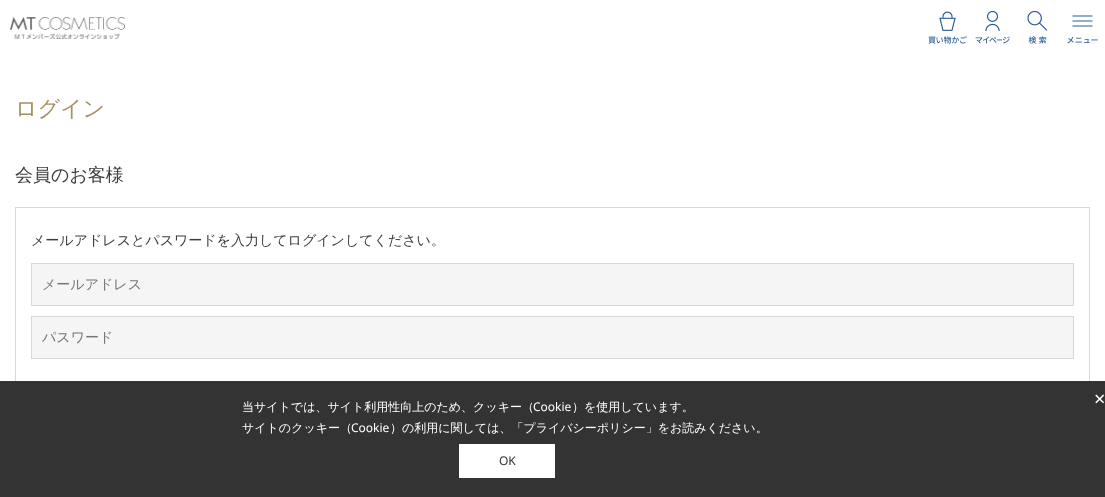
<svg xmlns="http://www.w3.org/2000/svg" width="1105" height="497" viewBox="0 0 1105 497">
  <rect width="100%" height="100%" fill="rgb(255,255,255)"/>
  <image x="10" y="17" width="115" height="22" href="pic1.png"/>
  <image x="928" y="11" width="39" height="33" href="pic2.png"/>
  <image x="975" y="11" width="35" height="33" href="pic3.png"/>
  <image x="1027" y="11" width="21" height="33" href="pic4.png"/>
  <image x="1067" y="15" width="31" height="29" href="pic5.png"/>
  <text x="15" y="116" font-family="WenQuanYi Zen Hei" font-size="22" font-weight="500" fill="rgb(165,144,97)">ログイン</text>
  <text x="15" y="181" font-family="WenQuanYi Zen Hei" font-size="18" font-weight="500" fill="rgb(60,60,60)">会員のお客様</text>
  <rect x="15.5" y="207.5" width="1074" height="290" fill="none" stroke="rgb(216,216,216)"/>
  <text x="31" y="245" font-family="WenQuanYi Zen Hei" font-size="14" font-weight="500" fill="rgb(60,60,60)">メールアドレスとパスワードを入力してログインしてください。</text>
  <rect x="31.5" y="263.5" width="1042" height="42" fill="rgb(245,245,245)" stroke="rgb(216,216,216)"/>
  <text x="42" y="289" font-family="WenQuanYi Zen Hei" font-size="14" font-weight="500" fill="rgb(117,117,117)">メールアドレス</text>
  <rect x="31.5" y="316.5" width="1042" height="42" fill="rgb(245,245,245)" stroke="rgb(216,216,216)"/>
  <text x="42" y="342" font-family="WenQuanYi Zen Hei" font-size="14" font-weight="500" fill="rgb(117,117,117)">パスワード</text>
  <rect x="0" y="381" width="1105" height="116" fill="rgb(51,51,51)"/>
  <text x="1094" y="406" font-family="Noto Sans" font-size="20" fill="rgb(255,255,255)">×</text>
  <text x="242" y="411" font-family="WenQuanYi Zen Hei" font-size="12" font-weight="500" fill="rgb(255,255,255)">当サイトでは、サイト利用性向上のため、クッキー（</text>
  <text x="533" y="411" font-family="Noto Sans" font-size="12" fill="rgb(255,255,255)">Cookie</text>
  <g font-family="WenQuanYi Zen Hei" font-size="12" font-weight="500" fill="rgb(255,255,255)">
    <text x="572" y="411">）を使用しています。</text>
    <text x="242" y="432">サイトのクッキー（</text>
  </g>
  <text x="351" y="432" font-family="Noto Sans" font-size="12" fill="rgb(255,255,255)">Cookie</text>
  <text x="390" y="432" font-family="WenQuanYi Zen Hei" font-size="12" font-weight="500" fill="rgb(255,255,255)">）の利用に関しては、「プライバシーポリシー」をお読みください。</text>
  <rect x="459" y="444" width="96" height="34" fill="rgb(255,255,255)"/>
  <text x="499" y="465" font-family="Noto Sans" font-size="12" fill="rgb(51,51,51)">OK</text>
</svg>
